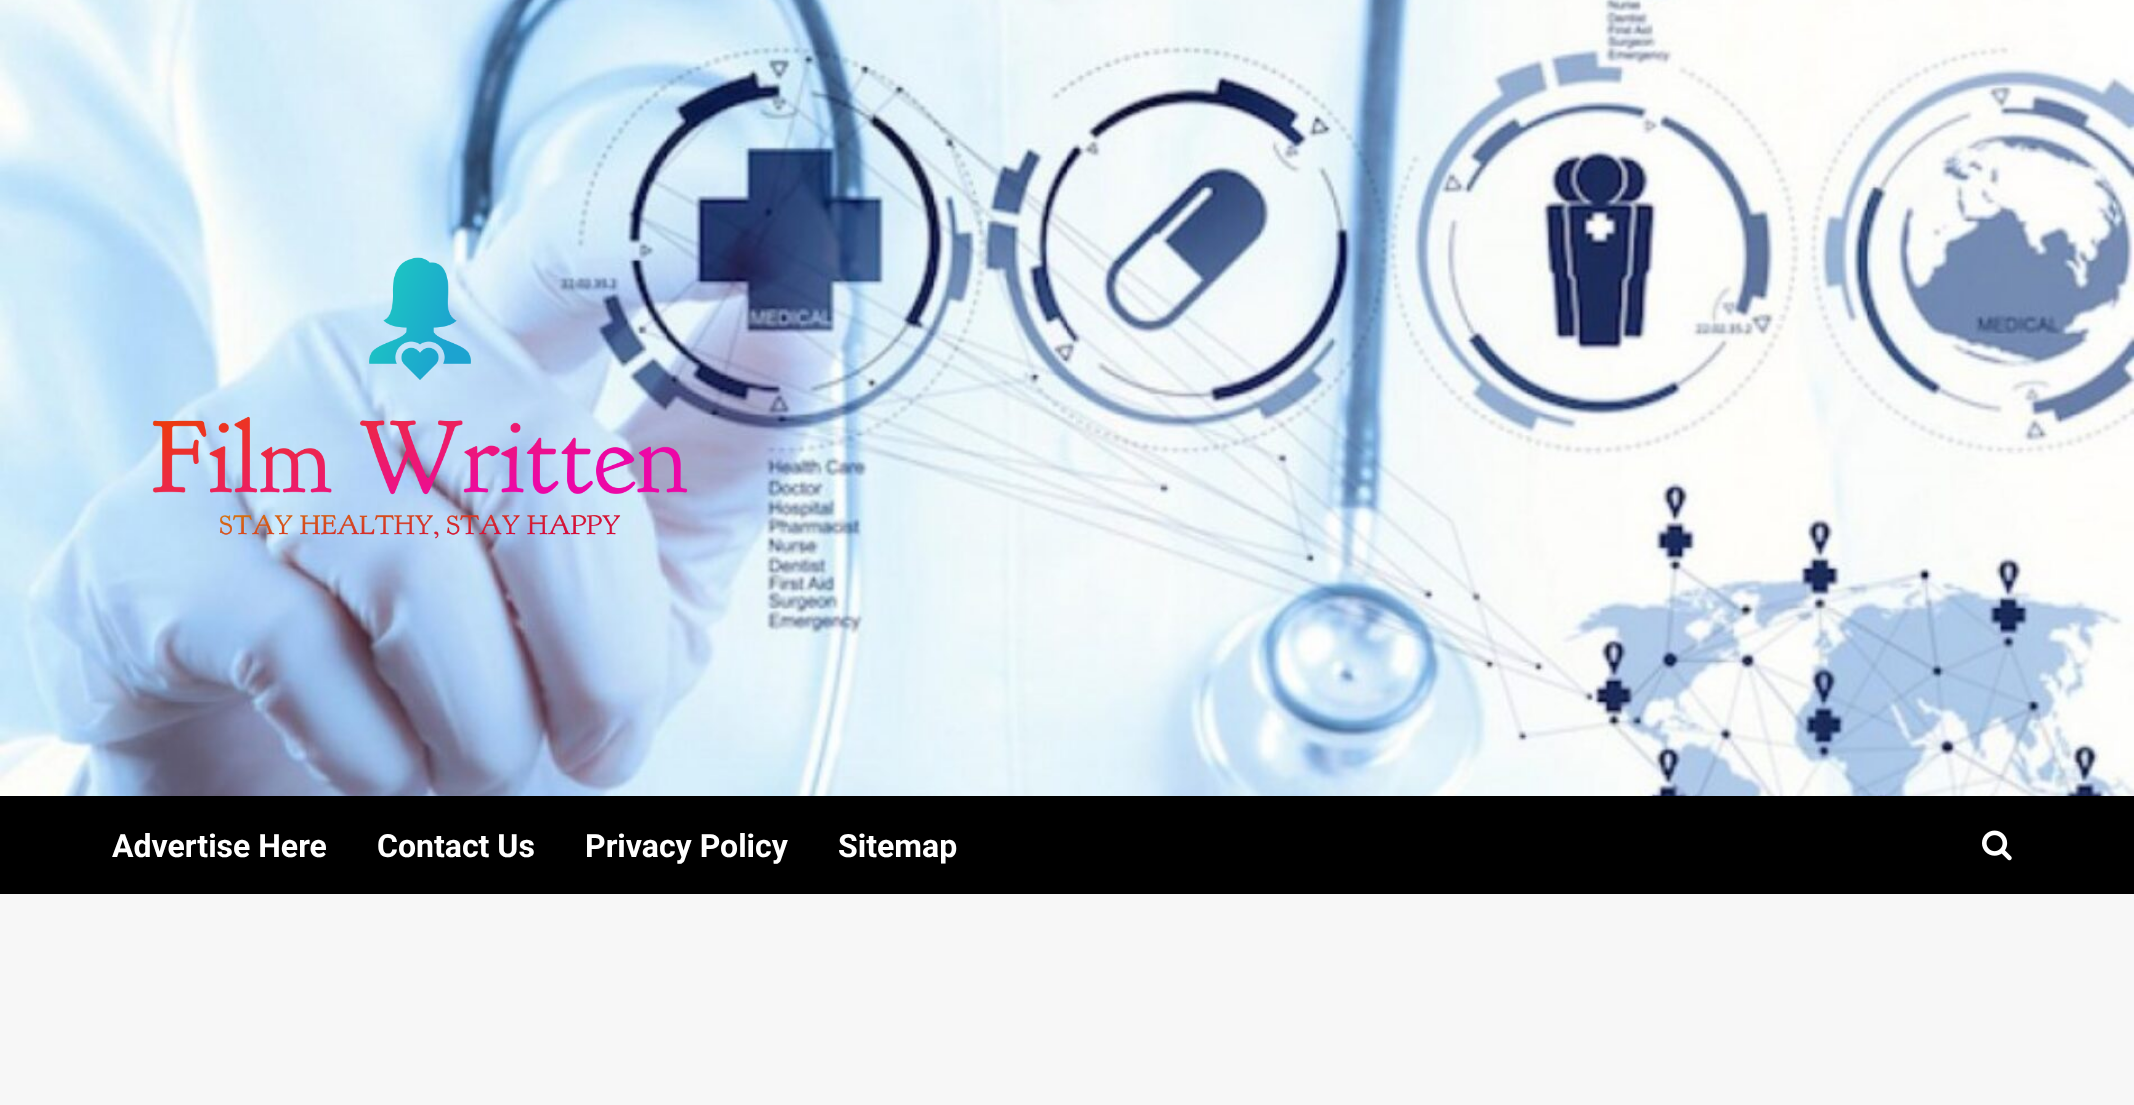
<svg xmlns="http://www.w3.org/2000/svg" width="2134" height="1105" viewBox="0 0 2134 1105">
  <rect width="100%" height="100%" fill="rgb(247,247,247)"/>
  <image x="0" y="0" width="2134" height="796" href="pic1.png"/>
  <image x="152" y="257" width="536" height="282" href="pic2.png"/>
  <rect x="0" y="796" width="2134" height="98" fill="rgb(0,0,0)"/>
  <g font-family="Roboto" font-size="32" font-weight="bold" fill="rgb(255,255,255)">
    <text x="112" y="857">Advertise Here</text>
    <text x="377" y="857">Contact Us</text>
    <text x="585" y="857">Privacy Policy</text>
    <text x="838" y="857">Sitemap</text>
  </g>
  <image x="1982" y="830" width="30" height="31" href="pic3.png"/>
</svg>
